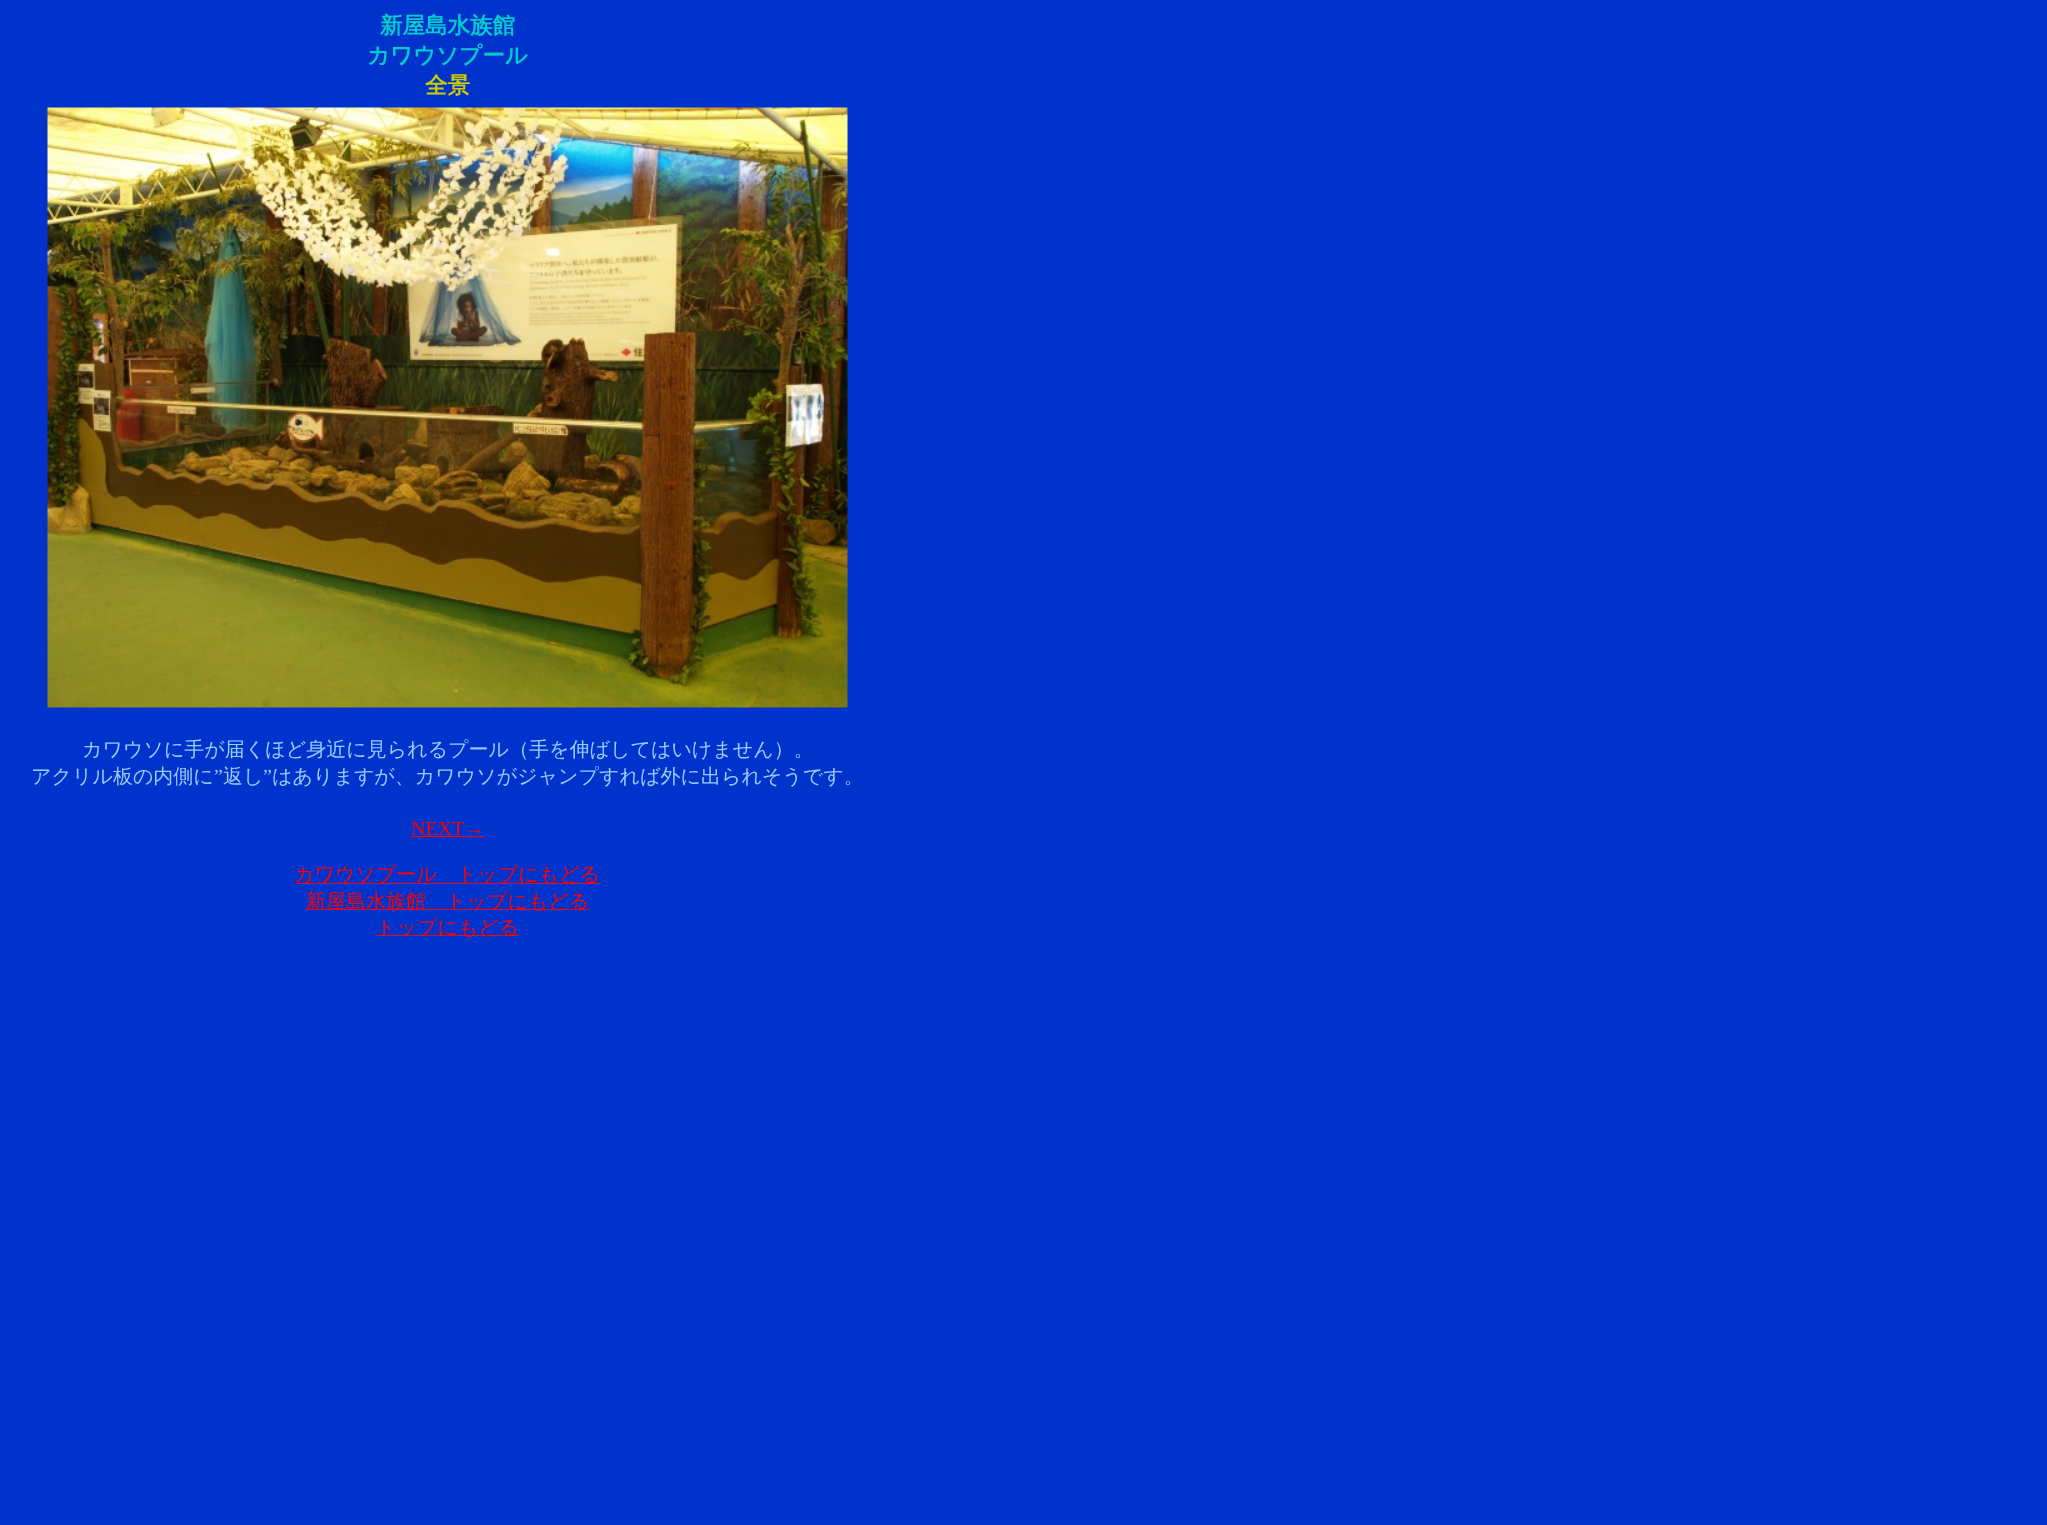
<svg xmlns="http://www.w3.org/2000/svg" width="2047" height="1525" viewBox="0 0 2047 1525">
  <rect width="100%" height="100%" fill="rgb(0,51,204)"/>
  <g font-family="WenQuanYi Zen Hei" font-size="22.5" font-weight="bold" fill="rgb(0,204,204)">
    <text x="380" y="33">新屋島水族館</text>
    <text x="367" y="63">カワウソプール</text>
  </g>
  <text x="425" y="93" font-family="WenQuanYi Zen Hei" font-size="22.5" font-weight="bold" fill="rgb(204,204,0)">全景</text>
  <image x="47" y="107" width="801" height="601" href="pic1.png"/>
  <g font-family="WenQuanYi Zen Hei" font-size="20" font-weight="500" fill="rgb(153,204,255)">
    <text x="82" y="756">カワウソに手が届くほど身近に見られるプール（手を伸ばしてはいけません）。</text>
    <text x="31" y="783">アクリル板の内側に</text>
  </g>
  <text x="214" y="783" font-family="Liberation Serif" font-size="20" fill="rgb(153,204,255)">”</text>
  <text x="223" y="783" font-family="WenQuanYi Zen Hei" font-size="20" font-weight="500" fill="rgb(153,204,255)">返し</text>
  <text x="263" y="783" font-family="Liberation Serif" font-size="20" fill="rgb(153,204,255)">”</text>
  <text x="272" y="783" font-family="WenQuanYi Zen Hei" font-size="20" font-weight="500" fill="rgb(153,204,255)">はありますが、カワウソがジャンプすれば外に出られそうです。</text>
  <text x="411" y="835" font-family="Liberation Serif" font-size="20" fill="rgb(255,0,0)">NEXT→</text>
  <rect x="411" y="836" width="73" height="1" fill="rgb(255,0,0)"/>
  <rect x="295" y="883" width="305" height="1" fill="rgb(255,0,0)"/>
  <text x="294" y="881" font-family="WenQuanYi Zen Hei" font-size="20" font-weight="500" fill="rgb(255,0,0)">カワウソプール　トップにもどる</text>
  <rect x="306" y="909" width="283" height="1" fill="rgb(255,0,0)"/>
  <text x="306" y="908" font-family="WenQuanYi Zen Hei" font-size="20" font-weight="500" fill="rgb(255,0,0)">新屋島水族館　トップにもどる</text>
  <rect x="376" y="935" width="143" height="1" fill="rgb(255,0,0)"/>
  <text x="376" y="934" font-family="WenQuanYi Zen Hei" font-size="20" font-weight="500" fill="rgb(255,0,0)">トップにもどる</text>
</svg>
